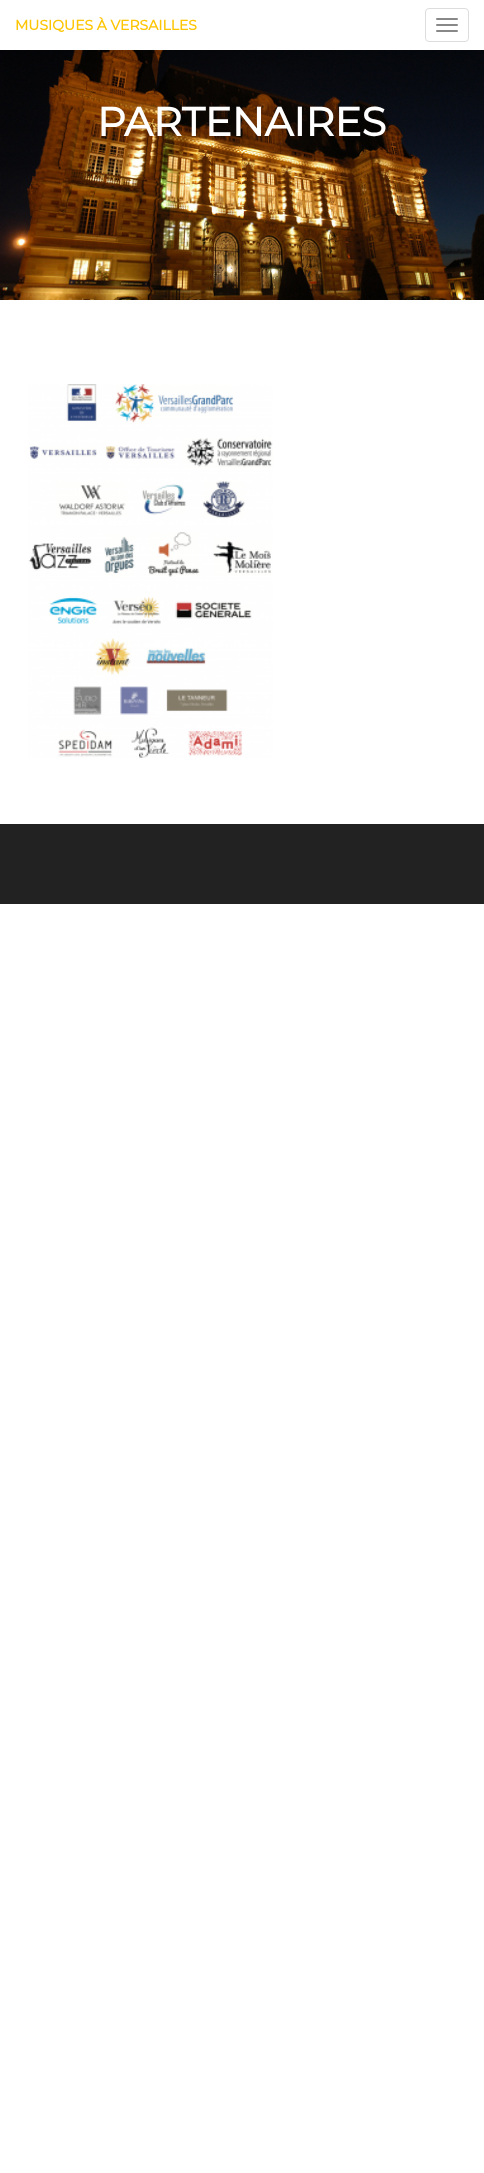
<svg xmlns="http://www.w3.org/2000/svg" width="484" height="2173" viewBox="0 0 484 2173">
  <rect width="100%" height="100%" fill="rgb(255,255,255)"/>
  <image x="0" y="50" width="484" height="250" href="pic1.png"/>
  <text x="15" y="30" font-family="Montserrat" font-size="14" font-weight="bold" fill="rgb(254,197,3)">MUSIQUES À VERSAILLES</text>
  <rect x="425.5" y="8.5" width="43" height="33" rx="3.5" fill="none" stroke="rgb(221,221,221)"/>
  <rect x="436" y="18" width="22" height="2" rx="1" fill="rgb(136,136,136)"/>
  <rect x="436" y="24" width="22" height="2" rx="1" fill="rgb(136,136,136)"/>
  <rect x="436" y="30" width="22" height="2" rx="1" fill="rgb(136,136,136)"/>
  <text x="97" y="136" font-family="Montserrat" font-size="40.25" font-weight="bold" fill="rgb(255,255,255)">PARTENAIRES</text>
  <image x="28" y="384" width="245" height="374" href="pic2.png"/>
  <rect x="0" y="824" width="484" height="80" fill="rgb(34,34,34)"/>
</svg>
